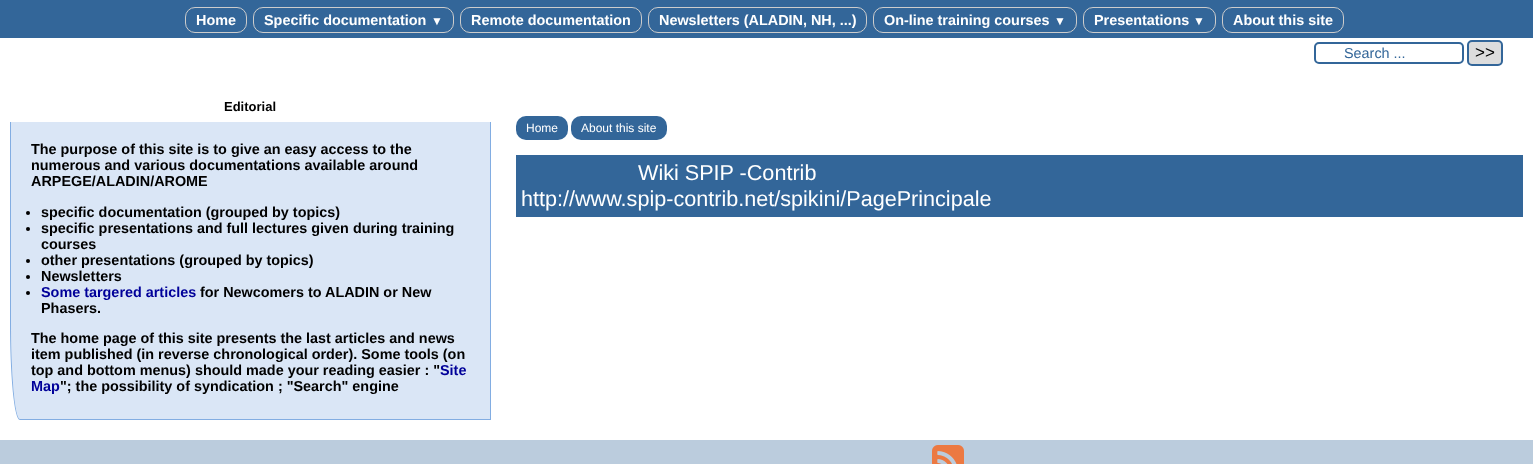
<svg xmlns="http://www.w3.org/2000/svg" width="1533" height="464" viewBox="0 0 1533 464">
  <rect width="100%" height="100%" fill="rgb(255,255,255)"/>
  <rect x="0" y="0" width="1533" height="38" fill="rgb(51,102,153)"/>
  <rect x="185.5" y="7.5" width="61" height="25" rx="9.5" fill="none" stroke="rgb(204,204,204)"/>
  <text x="196" y="25" font-family="Liberation Sans" font-size="14.4" font-weight="bold" fill="rgb(255,255,255)">Home</text>
  <rect x="253.5" y="7.5" width="200" height="25" rx="9.5" fill="none" stroke="rgb(204,204,204)"/>
  <text x="264" y="25" font-family="Liberation Sans" font-size="14.4" font-weight="bold" fill="rgb(255,255,255)">Specific documentation</text>
  <text x="431" y="25" font-family="Liberation Sans" font-size="12" font-weight="bold" fill="rgb(255,255,255)">▼</text>
  <rect x="460.5" y="7.5" width="181" height="25" rx="9.5" fill="none" stroke="rgb(204,204,204)"/>
  <text x="471" y="25" font-family="Liberation Sans" font-size="14.4" font-weight="bold" fill="rgb(255,255,255)">Remote documentation</text>
  <rect x="648.5" y="7.5" width="218" height="25" rx="9.5" fill="none" stroke="rgb(204,204,204)"/>
  <text x="659" y="25" font-family="Liberation Sans" font-size="14.4" font-weight="bold" fill="rgb(255,255,255)">Newsletters (ALADIN, NH, ...)</text>
  <rect x="873.5" y="7.5" width="203" height="25" rx="9.5" fill="none" stroke="rgb(204,204,204)"/>
  <text x="884" y="25" font-family="Liberation Sans" font-size="14.4" font-weight="bold" fill="rgb(255,255,255)">On-line training courses</text>
  <text x="1054" y="25" font-family="Liberation Sans" font-size="12" font-weight="bold" fill="rgb(255,255,255)">▼</text>
  <rect x="1083.5" y="7.5" width="132" height="25" rx="9.5" fill="none" stroke="rgb(204,204,204)"/>
  <text x="1094" y="25" font-family="Liberation Sans" font-size="14.4" font-weight="bold" fill="rgb(255,255,255)">Presentations</text>
  <text x="1193" y="25" font-family="Liberation Sans" font-size="12" font-weight="bold" fill="rgb(255,255,255)">▼</text>
  <rect x="1222.5" y="7.5" width="121" height="25" rx="9.5" fill="none" stroke="rgb(204,204,204)"/>
  <text x="1233" y="25" font-family="Liberation Sans" font-size="14.4" font-weight="bold" fill="rgb(255,255,255)">About this site</text>
  <rect x="1315" y="43" width="148" height="20" rx="4" fill="none" stroke="rgb(51,102,153)" stroke-width="2"/>
  <text x="1344" y="58" font-family="Liberation Sans" font-size="14.4" fill="rgb(51,102,153)">Search ...</text>
  <rect x="1468" y="41" width="34" height="24" rx="4" fill="rgb(221,221,221)" stroke="rgb(51,102,153)" stroke-width="2"/>
  <text x="1475" y="58" font-family="Liberation Sans" font-size="17" fill="rgb(0,0,0)">&gt;&gt;</text>
  <text x="224" y="111" font-family="Liberation Sans" font-size="13" font-weight="bold" fill="rgb(0,0,0)">Editorial</text>
  <path d="M11 122H490V419H20C15 419 11 375 11 320Z" fill="rgb(218,230,246)"/>
  <path d="M10 122H491V420H20C14 420 10 375 10 320ZM11 122H490V419H20C15 419 11 375 11 320Z" fill="rgb(130,173,226)" fill-rule="evenodd"/>
  <g font-family="Liberation Sans" font-size="14.4" font-weight="bold" fill="rgb(0,0,0)">
    <text>
      <tspan x="31" y="154">The purpose of this site is to give an easy access to the</tspan>
      <tspan x="31" y="170">numerous and various documentations available around</tspan>
      <tspan x="31" y="186">ARPEGE/ALADIN/AROME</tspan>
    </text>
  </g>
  <circle cx="28" cy="213" r="2" fill="rgb(0,0,0)"/>
  <text x="41" y="217" font-family="Liberation Sans" font-size="14.4" font-weight="bold" fill="rgb(0,0,0)">specific documentation (grouped by topics)</text>
  <circle cx="28" cy="229" r="2" fill="rgb(0,0,0)"/>
  <g font-family="Liberation Sans" font-size="14.4" font-weight="bold" fill="rgb(0,0,0)">
    <text>
      <tspan x="41" y="233">specific presentations and full lectures given during training</tspan>
      <tspan x="41" y="249">courses</tspan>
    </text>
  </g>
  <circle cx="28" cy="261" r="2" fill="rgb(0,0,0)"/>
  <text x="41" y="265" font-family="Liberation Sans" font-size="14.4" font-weight="bold" fill="rgb(0,0,0)">other presentations (grouped by topics)</text>
  <circle cx="28" cy="277" r="2" fill="rgb(0,0,0)"/>
  <text x="41" y="281" font-family="Liberation Sans" font-size="14.4" font-weight="bold" fill="rgb(0,0,0)">Newsletters</text>
  <circle cx="28" cy="293" r="2" fill="rgb(0,0,0)"/>
  <text x="41" y="297" font-family="Liberation Sans" font-size="14.4" font-weight="bold" fill="rgb(0,0,153)">Some targered articles</text>
  <g font-family="Liberation Sans" font-size="14.4" font-weight="bold" fill="rgb(0,0,0)">
    <text x="200" y="297">for Newcomers to ALADIN or New</text>
    <text x="41" y="313">Phasers.</text>
    <text>
      <tspan x="31" y="343">The home page of this site presents the last articles and news</tspan>
      <tspan x="31" y="359">item published (in reverse chronological order). Some tools (on</tspan>
      <tspan x="31" y="375">top and bottom menus) should made your reading easier : "</tspan>
    </text>
  </g>
  <g font-family="Liberation Sans" font-size="14.4" font-weight="bold" fill="rgb(0,0,153)">
    <text x="440" y="375">Site</text>
    <text x="31" y="391">Map</text>
  </g>
  <text x="60" y="391" font-family="Liberation Sans" font-size="14.4" font-weight="bold" fill="rgb(0,0,0)">"; the possibility of syndication ; "Search" engine</text>
  <rect x="516" y="116" width="52" height="24" rx="10" fill="rgb(51,102,153)"/>
  <text x="526" y="132" font-family="Liberation Sans" font-size="12" fill="rgb(255,255,255)">Home</text>
  <rect x="571" y="116" width="96" height="24" rx="10" fill="rgb(51,102,153)"/>
  <text x="581" y="132" font-family="Liberation Sans" font-size="12" fill="rgb(255,255,255)">About this site</text>
  <rect x="516" y="155" width="1007" height="62" fill="rgb(51,102,153)"/>
  <g font-family="Liberation Sans" font-size="21.6" fill="rgb(255,255,255)">
    <text x="638" y="180">Wiki SPIP -Contrib</text>
    <text x="521" y="206">http://www.spip-contrib.net/spikini/PagePrincipale</text>
  </g>
  <rect x="0" y="440" width="1533" height="24" fill="rgb(187,204,221)"/>
  <image x="932" y="445" width="32" height="19" href="pic1.png"/>
</svg>
